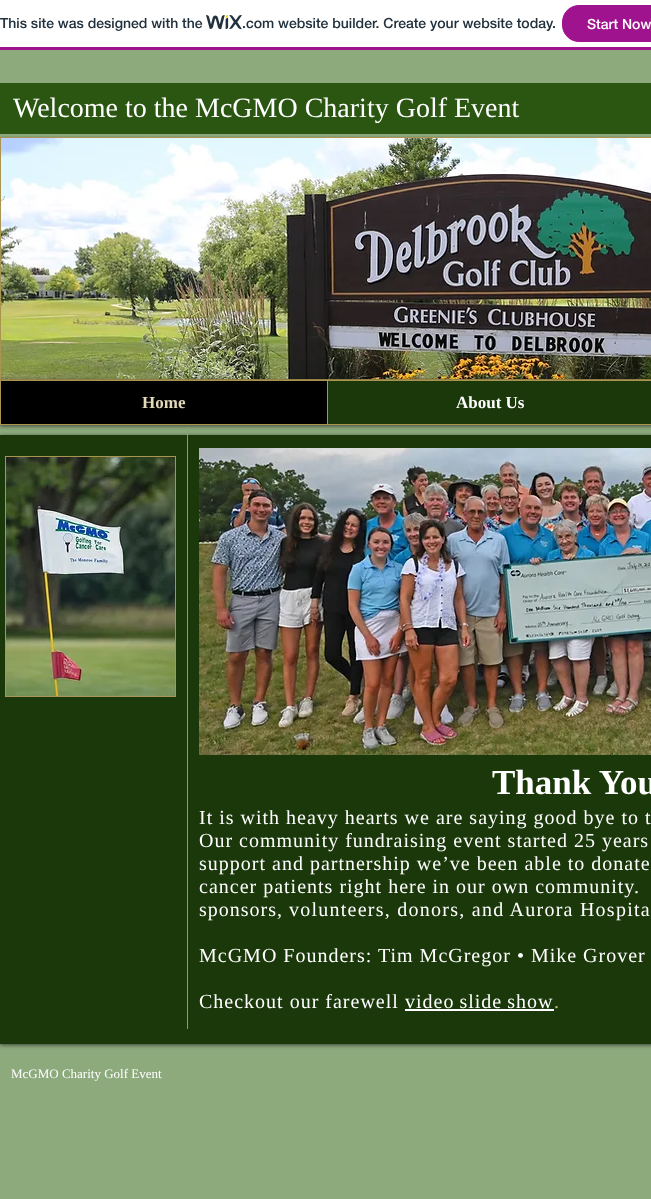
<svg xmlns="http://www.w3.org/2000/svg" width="651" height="1199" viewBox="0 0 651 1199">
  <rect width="100%" height="100%" fill="rgb(255,255,255)"/>
  <rect x="0" y="47" width="651" height="3" fill="rgb(160,19,142)"/>
  <text x="0" y="28" font-family="'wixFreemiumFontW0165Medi'" font-size="14" font-weight="500" fill="rgb(32,48,60)">This site was designed with the</text>
  <image x="206" y="15" width="36" height="15" href="pic1.png"/>
  <text x="242" y="28" font-family="'wixFreemiumFontW0165Medi'" font-size="14" font-weight="500" fill="rgb(32,48,60)">.com website builder. Create your website today.</text>
  <rect x="562.5" y="5.5" width="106" height="36" rx="16.5" fill="rgb(160,19,142)" stroke="rgb(160,19,142)"/>
  <text x="587" y="29" font-family="'wixFreemiumFontW0165Medi'" font-size="14" font-weight="500" fill="rgb(255,255,255)">Start Now</text>
  <rect x="0" y="50" width="651" height="1149" fill="rgb(141,170,125)"/>
  <rect x="0" y="83" width="651" height="51" fill="rgb(42,86,18)"/>
  <text x="13" y="117" font-family="Liberation Serif" font-size="28" fill="rgb(255,255,255)">Welcome to the McGMO Charity Golf Event</text>
  <rect x="0" y="138" width="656" height="243" fill="rgba(0,0,0,0.5)" filter="blur(1.5px)"/>
  <rect x="0" y="137" width="651" height="243" fill="rgb(170,149,80)"/>
  <image x="1" y="138" width="650" height="241" href="pic2.png"/>
  <rect x="0" y="381" width="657" height="45" fill="rgba(0,0,0,0.6)" filter="blur(2px)"/>
  <rect x="328" y="381" width="323" height="43" fill="rgb(26,56,10)"/>
  <rect x="0.5" y="380.5" width="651" height="44" fill="none" stroke="rgb(170,149,80)"/>
  <rect x="1" y="381" width="326" height="43" fill="rgb(0,0,0)"/>
  <text x="142" y="408" font-family="Liberation Serif" font-size="17" font-weight="bold" fill="rgb(226,217,186)">Home</text>
  <rect x="327" y="381" width="1" height="43" fill="rgb(170,149,80)"/>
  <text x="456" y="408" font-family="Liberation Serif" font-size="17" font-weight="bold" fill="rgb(255,255,255)">About Us</text>
  <rect x="0" y="436" width="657" height="609" fill="rgba(0,0,0,0.6)" filter="blur(2px)"/>
  <rect x="0" y="435" width="651" height="609" fill="rgb(26,56,10)"/>
  <rect x="5" y="456" width="171" height="241" fill="rgb(170,149,80)"/>
  <image x="6" y="457" width="169" height="239" href="pic3.png"/>
  <rect x="187" y="427" width="1" height="602" fill="rgb(170,149,80)"/>
  <image x="199" y="448" width="452" height="307" href="pic4.png"/>
  <text x="492" y="794" font-family="Liberation Serif" font-size="35" font-weight="bold" fill="rgb(255,255,255)">Thank You</text>
  <g font-family="Liberation Serif" font-size="20" letter-spacing="1" fill="rgb(255,255,255)">
    <text>
      <tspan x="199" y="824">It is with heavy hearts we are saying good bye to t</tspan>
      <tspan x="199" y="847">Our community fundraising event started 25 years</tspan>
      <tspan x="199" y="870">support and partnership we’ve been able to donate</tspan>
      <tspan x="199" y="893">cancer patients right here in our own community.</tspan>
      <tspan x="199" y="916">sponsors,</tspan>
    </text>
  </g>
  <text x="289" y="916" font-family="Liberation Serif" font-size="20" letter-spacing="1.25" fill="rgb(255,255,255)">volunteers, donors, and Aurora Hospita</text>
  <g font-family="Liberation Serif" font-size="20" letter-spacing="1" fill="rgb(255,255,255)">
    <text x="199" y="962">McGMO Founders: Tim McGregor • Mike Grover</text>
    <text x="199" y="1008">Checkout our farewell</text>
    <text x="405" y="1008" word-spacing="-1">video slide show</text>
  </g>
  <text x="554" y="1008" font-family="Liberation Serif" font-size="20" letter-spacing="1" fill="rgb(198,186,146)">.</text>
  <rect x="405" y="1009" width="149" height="2" fill="rgb(255,255,255)"/>
  <text x="11" y="1078" font-family="Liberation Serif" font-size="13" fill="rgb(255,255,255)">McGMO Charity Golf Event</text>
</svg>
